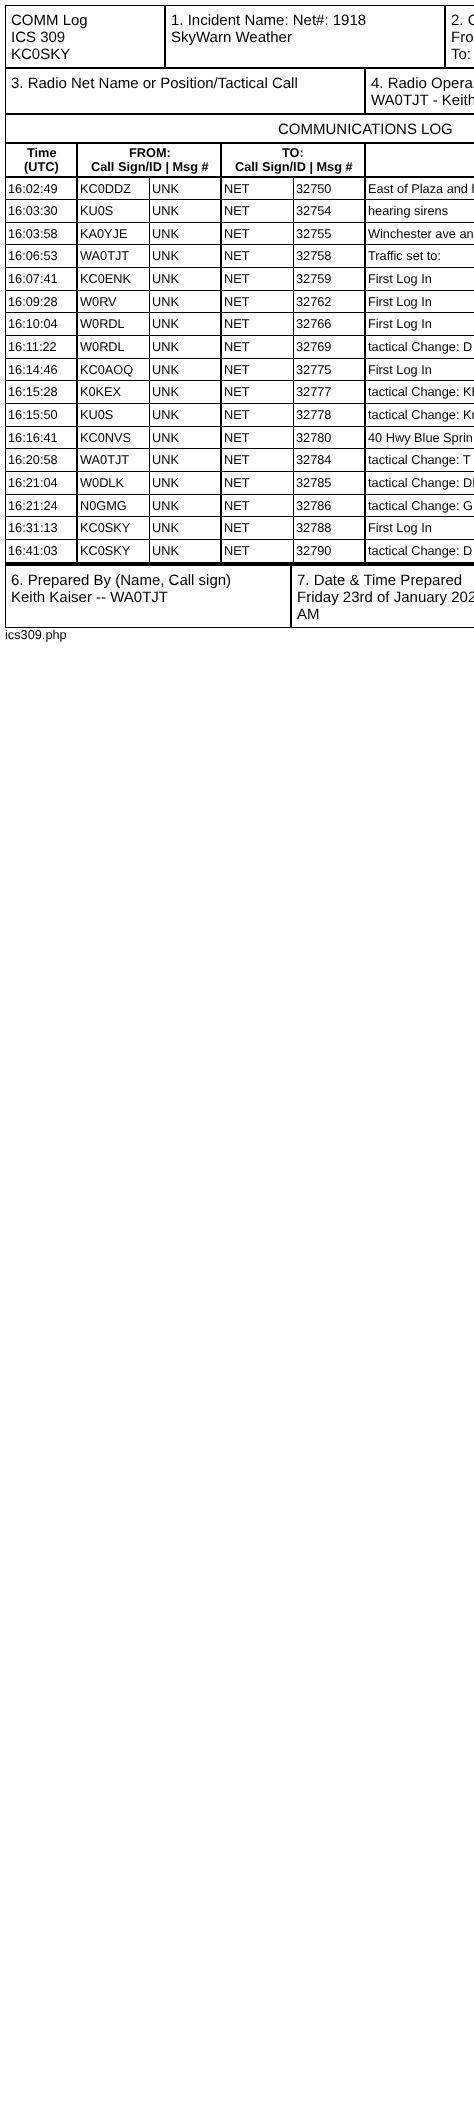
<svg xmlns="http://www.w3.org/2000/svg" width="474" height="2119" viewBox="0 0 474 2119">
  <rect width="100%" height="100%" fill="rgb(255,255,255)"/>
  <rect x="5.5" y="5.5" width="159" height="62" fill="none" stroke="rgb(0,0,0)"/>
  <g font-family="Liberation Sans" font-size="15" fill="rgb(0,0,0)">
    <text>
      <tspan x="11" y="25">COMM Log</tspan>
      <tspan x="11" y="42">ICS 309</tspan>
      <tspan x="11" y="59">KC0SKY</tspan>
    </text>
  </g>
  <rect x="165.5" y="5.5" width="279" height="62" fill="none" stroke="rgb(0,0,0)"/>
  <g font-family="Liberation Sans" font-size="15" fill="rgb(0,0,0)">
    <text>
      <tspan x="171" y="25">1. Incident Name: Net#: 1918</tspan>
      <tspan x="171" y="42">SkyWarn Weather</tspan>
    </text>
  </g>
  <rect x="445.5" y="5.5" width="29" height="62" fill="none" stroke="rgb(0,0,0)"/>
  <g font-family="Liberation Sans" font-size="15" fill="rgb(0,0,0)">
    <text>
      <tspan x="451" y="25">2. O</tspan>
      <tspan x="451" y="42">Fro</tspan>
      <tspan x="451" y="59">To:</tspan>
    </text>
  </g>
  <rect x="5.5" y="68.5" width="359" height="45" fill="none" stroke="rgb(0,0,0)"/>
  <text x="11" y="88" font-family="Liberation Sans" font-size="15" fill="rgb(0,0,0)">3. Radio Net Name or Position/Tactical Call</text>
  <rect x="365.5" y="68.5" width="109" height="45" fill="none" stroke="rgb(0,0,0)"/>
  <g font-family="Liberation Sans" font-size="15" fill="rgb(0,0,0)">
    <text>
      <tspan x="371" y="88">4. Radio Opera</tspan>
      <tspan x="371" y="105">WA0TJT - Keith</tspan>
    </text>
  </g>
  <rect x="5.5" y="114.5" width="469" height="28" fill="none" stroke="rgb(0,0,0)"/>
  <text x="278" y="134" font-family="Liberation Sans" font-size="15" fill="rgb(0,0,0)">COMMUNICATIONS LOG</text>
  <rect x="5" y="143" width="469" height="1" fill="rgb(0,0,0)"/>
  <rect x="5" y="562" width="469" height="3" fill="rgb(0,0,0)"/>
  <rect x="5" y="143" width="1" height="420" fill="rgb(0,0,0)"/>
  <rect x="293" y="199" width="181" height="1" fill="rgb(0,0,0)"/>
  <rect x="293" y="222" width="181" height="1" fill="rgb(0,0,0)"/>
  <rect x="293" y="244" width="181" height="1" fill="rgb(0,0,0)"/>
  <rect x="293" y="267" width="181" height="1" fill="rgb(0,0,0)"/>
  <rect x="293" y="290" width="181" height="1" fill="rgb(0,0,0)"/>
  <rect x="293" y="312" width="181" height="1" fill="rgb(0,0,0)"/>
  <rect x="293" y="335" width="181" height="1" fill="rgb(0,0,0)"/>
  <rect x="293" y="358" width="181" height="1" fill="rgb(0,0,0)"/>
  <rect x="293" y="380" width="181" height="1" fill="rgb(0,0,0)"/>
  <rect x="293" y="403" width="181" height="1" fill="rgb(0,0,0)"/>
  <rect x="293" y="426" width="181" height="1" fill="rgb(0,0,0)"/>
  <rect x="293" y="448" width="181" height="1" fill="rgb(0,0,0)"/>
  <rect x="293" y="471" width="181" height="1" fill="rgb(0,0,0)"/>
  <rect x="293" y="494" width="181" height="1" fill="rgb(0,0,0)"/>
  <rect x="293" y="516" width="181" height="1" fill="rgb(0,0,0)"/>
  <rect x="293" y="539" width="181" height="1" fill="rgb(0,0,0)"/>
  <rect x="364" y="176" width="2" height="387" fill="rgb(0,0,0)"/>
  <rect x="364" y="176" width="110" height="2" fill="rgb(0,0,0)"/>
  <rect x="364" y="143" width="2" height="35" fill="rgb(0,0,0)"/>
  <rect x="293" y="539" width="1" height="24" fill="rgb(0,0,0)"/>
  <rect x="149" y="539" width="145" height="1" fill="rgb(0,0,0)"/>
  <rect x="293" y="516" width="1" height="24" fill="rgb(0,0,0)"/>
  <rect x="149" y="516" width="145" height="1" fill="rgb(0,0,0)"/>
  <rect x="293" y="494" width="1" height="23" fill="rgb(0,0,0)"/>
  <rect x="149" y="494" width="145" height="1" fill="rgb(0,0,0)"/>
  <rect x="293" y="471" width="1" height="24" fill="rgb(0,0,0)"/>
  <rect x="149" y="471" width="145" height="1" fill="rgb(0,0,0)"/>
  <rect x="293" y="448" width="1" height="24" fill="rgb(0,0,0)"/>
  <rect x="149" y="448" width="145" height="1" fill="rgb(0,0,0)"/>
  <rect x="293" y="426" width="1" height="23" fill="rgb(0,0,0)"/>
  <rect x="149" y="426" width="145" height="1" fill="rgb(0,0,0)"/>
  <rect x="293" y="403" width="1" height="24" fill="rgb(0,0,0)"/>
  <rect x="149" y="403" width="145" height="1" fill="rgb(0,0,0)"/>
  <rect x="293" y="380" width="1" height="24" fill="rgb(0,0,0)"/>
  <rect x="149" y="380" width="145" height="1" fill="rgb(0,0,0)"/>
  <rect x="293" y="358" width="1" height="23" fill="rgb(0,0,0)"/>
  <rect x="149" y="358" width="145" height="1" fill="rgb(0,0,0)"/>
  <rect x="293" y="335" width="1" height="24" fill="rgb(0,0,0)"/>
  <rect x="149" y="335" width="145" height="1" fill="rgb(0,0,0)"/>
  <rect x="293" y="312" width="1" height="24" fill="rgb(0,0,0)"/>
  <rect x="149" y="312" width="145" height="1" fill="rgb(0,0,0)"/>
  <rect x="293" y="290" width="1" height="23" fill="rgb(0,0,0)"/>
  <rect x="149" y="290" width="145" height="1" fill="rgb(0,0,0)"/>
  <rect x="293" y="267" width="1" height="24" fill="rgb(0,0,0)"/>
  <rect x="149" y="267" width="145" height="1" fill="rgb(0,0,0)"/>
  <rect x="293" y="244" width="1" height="24" fill="rgb(0,0,0)"/>
  <rect x="149" y="244" width="145" height="1" fill="rgb(0,0,0)"/>
  <rect x="293" y="222" width="1" height="23" fill="rgb(0,0,0)"/>
  <rect x="149" y="222" width="145" height="1" fill="rgb(0,0,0)"/>
  <rect x="293" y="199" width="1" height="24" fill="rgb(0,0,0)"/>
  <rect x="149" y="199" width="145" height="1" fill="rgb(0,0,0)"/>
  <rect x="293" y="177" width="1" height="23" fill="rgb(0,0,0)"/>
  <rect x="220" y="176" width="2" height="387" fill="rgb(0,0,0)"/>
  <rect x="220" y="176" width="146" height="2" fill="rgb(0,0,0)"/>
  <rect x="220" y="143" width="2" height="35" fill="rgb(0,0,0)"/>
  <rect x="149" y="539" width="1" height="24" fill="rgb(0,0,0)"/>
  <rect x="5" y="539" width="145" height="1" fill="rgb(0,0,0)"/>
  <rect x="149" y="516" width="1" height="24" fill="rgb(0,0,0)"/>
  <rect x="5" y="516" width="145" height="1" fill="rgb(0,0,0)"/>
  <rect x="149" y="494" width="1" height="23" fill="rgb(0,0,0)"/>
  <rect x="5" y="494" width="145" height="1" fill="rgb(0,0,0)"/>
  <rect x="149" y="471" width="1" height="24" fill="rgb(0,0,0)"/>
  <rect x="5" y="471" width="145" height="1" fill="rgb(0,0,0)"/>
  <rect x="149" y="448" width="1" height="24" fill="rgb(0,0,0)"/>
  <rect x="5" y="448" width="145" height="1" fill="rgb(0,0,0)"/>
  <rect x="149" y="426" width="1" height="23" fill="rgb(0,0,0)"/>
  <rect x="5" y="426" width="145" height="1" fill="rgb(0,0,0)"/>
  <rect x="149" y="403" width="1" height="24" fill="rgb(0,0,0)"/>
  <rect x="5" y="403" width="145" height="1" fill="rgb(0,0,0)"/>
  <rect x="149" y="380" width="1" height="24" fill="rgb(0,0,0)"/>
  <rect x="5" y="380" width="145" height="1" fill="rgb(0,0,0)"/>
  <rect x="149" y="358" width="1" height="23" fill="rgb(0,0,0)"/>
  <rect x="5" y="358" width="145" height="1" fill="rgb(0,0,0)"/>
  <rect x="149" y="335" width="1" height="24" fill="rgb(0,0,0)"/>
  <rect x="5" y="335" width="145" height="1" fill="rgb(0,0,0)"/>
  <rect x="149" y="312" width="1" height="24" fill="rgb(0,0,0)"/>
  <rect x="5" y="312" width="145" height="1" fill="rgb(0,0,0)"/>
  <rect x="149" y="290" width="1" height="23" fill="rgb(0,0,0)"/>
  <rect x="5" y="290" width="145" height="1" fill="rgb(0,0,0)"/>
  <rect x="149" y="267" width="1" height="24" fill="rgb(0,0,0)"/>
  <rect x="5" y="267" width="145" height="1" fill="rgb(0,0,0)"/>
  <rect x="149" y="244" width="1" height="24" fill="rgb(0,0,0)"/>
  <rect x="5" y="244" width="145" height="1" fill="rgb(0,0,0)"/>
  <rect x="149" y="222" width="1" height="23" fill="rgb(0,0,0)"/>
  <rect x="5" y="222" width="145" height="1" fill="rgb(0,0,0)"/>
  <rect x="149" y="199" width="1" height="24" fill="rgb(0,0,0)"/>
  <rect x="5" y="199" width="145" height="1" fill="rgb(0,0,0)"/>
  <rect x="149" y="177" width="1" height="23" fill="rgb(0,0,0)"/>
  <rect x="76" y="176" width="2" height="387" fill="rgb(0,0,0)"/>
  <rect x="76" y="176" width="146" height="2" fill="rgb(0,0,0)"/>
  <rect x="76" y="143" width="2" height="35" fill="rgb(0,0,0)"/>
  <rect x="5" y="176" width="73" height="2" fill="rgb(0,0,0)"/>
  <g font-family="Liberation Sans" font-size="12.75" font-weight="bold" fill="rgb(0,0,0)">
    <text x="27" y="157">Time</text>
    <text x="24" y="171">(UTC)</text>
    <text x="129" y="157">FROM:</text>
    <text x="91" y="171">Call Sign/ID | Msg #</text>
    <text x="282" y="157">TO:</text>
    <text x="235" y="171">Call Sign/ID | Msg #</text>
  </g>
  <g font-family="Liberation Sans" font-size="12.75" fill="rgb(0,0,0)">
    <text x="8" y="193">16:02:49</text>
    <text x="80" y="193">KC0DDZ</text>
    <text x="152" y="193">UNK</text>
    <text x="224" y="193">NET</text>
    <text x="296" y="193">32750</text>
    <text x="368" y="193">East of Plaza and h</text>
    <text x="8" y="215">16:03:30</text>
    <text x="80" y="215">KU0S</text>
    <text x="152" y="215">UNK</text>
    <text x="224" y="215">NET</text>
    <text x="296" y="215">32754</text>
    <text x="368" y="215">hearing sirens</text>
    <text x="8" y="238">16:03:58</text>
    <text x="80" y="238">KA0YJE</text>
    <text x="152" y="238">UNK</text>
    <text x="224" y="238">NET</text>
    <text x="296" y="238">32755</text>
    <text x="368" y="238">Winchester ave an</text>
    <text x="8" y="260">16:06:53</text>
    <text x="80" y="260">WA0TJT</text>
    <text x="152" y="260">UNK</text>
    <text x="224" y="260">NET</text>
    <text x="296" y="260">32758</text>
    <text x="368" y="260">Traffic set to:</text>
    <text x="8" y="283">16:07:41</text>
    <text x="80" y="283">KC0ENK</text>
    <text x="152" y="283">UNK</text>
    <text x="224" y="283">NET</text>
    <text x="296" y="283">32759</text>
    <text x="368" y="283">First Log In</text>
    <text x="8" y="306">16:09:28</text>
    <text x="80" y="306">W0RV</text>
    <text x="152" y="306">UNK</text>
    <text x="224" y="306">NET</text>
    <text x="296" y="306">32762</text>
    <text x="368" y="306">First Log In</text>
    <text x="8" y="328">16:10:04</text>
    <text x="80" y="328">W0RDL</text>
    <text x="152" y="328">UNK</text>
    <text x="224" y="328">NET</text>
    <text x="296" y="328">32766</text>
    <text x="368" y="328">First Log In</text>
    <text x="8" y="351">16:11:22</text>
    <text x="80" y="351">W0RDL</text>
    <text x="152" y="351">UNK</text>
    <text x="224" y="351">NET</text>
    <text x="296" y="351">32769</text>
    <text x="368" y="351">tactical Change: D</text>
    <text x="8" y="374">16:14:46</text>
    <text x="80" y="374">KC0AOQ</text>
    <text x="152" y="374">UNK</text>
    <text x="224" y="374">NET</text>
    <text x="296" y="374">32775</text>
    <text x="368" y="374">First Log In</text>
    <text x="8" y="396">16:15:28</text>
    <text x="80" y="396">K0KEX</text>
    <text x="152" y="396">UNK</text>
    <text x="224" y="396">NET</text>
    <text x="296" y="396">32777</text>
    <text x="368" y="396">tactical Change: KE</text>
    <text x="8" y="419">16:15:50</text>
    <text x="80" y="419">KU0S</text>
    <text x="152" y="419">UNK</text>
    <text x="224" y="419">NET</text>
    <text x="296" y="419">32778</text>
    <text x="368" y="419">tactical Change: Kr</text>
    <text x="8" y="442">16:16:41</text>
    <text x="80" y="442">KC0NVS</text>
    <text x="152" y="442">UNK</text>
    <text x="224" y="442">NET</text>
    <text x="296" y="442">32780</text>
    <text x="368" y="442">40 Hwy Blue Sprin</text>
    <text x="8" y="464">16:20:58</text>
    <text x="80" y="464">WA0TJT</text>
    <text x="152" y="464">UNK</text>
    <text x="224" y="464">NET</text>
    <text x="296" y="464">32784</text>
    <text x="368" y="464">tactical Change: T</text>
    <text x="8" y="487">16:21:04</text>
    <text x="80" y="487">W0DLK</text>
    <text x="152" y="487">UNK</text>
    <text x="224" y="487">NET</text>
    <text x="296" y="487">32785</text>
    <text x="368" y="487">tactical Change: DL</text>
    <text x="8" y="510">16:21:24</text>
    <text x="80" y="510">N0GMG</text>
    <text x="152" y="510">UNK</text>
    <text x="224" y="510">NET</text>
    <text x="296" y="510">32786</text>
    <text x="368" y="510">tactical Change: G</text>
    <text x="8" y="532">16:31:13</text>
    <text x="80" y="532">KC0SKY</text>
    <text x="152" y="532">UNK</text>
    <text x="224" y="532">NET</text>
    <text x="296" y="532">32788</text>
    <text x="368" y="532">First Log In</text>
    <text x="8" y="555">16:41:03</text>
    <text x="80" y="555">KC0SKY</text>
    <text x="152" y="555">UNK</text>
    <text x="224" y="555">NET</text>
    <text x="296" y="555">32790</text>
    <text x="368" y="555">tactical Change: D</text>
  </g>
  <rect x="5.5" y="565.5" width="285" height="62" fill="none" stroke="rgb(0,0,0)"/>
  <g font-family="Liberation Sans" font-size="15" fill="rgb(0,0,0)">
    <text>
      <tspan x="11" y="585">6. Prepared By (Name, Call sign)</tspan>
      <tspan x="11" y="602">Keith Kaiser -- WA0TJT</tspan>
    </text>
  </g>
  <rect x="291.5" y="565.5" width="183" height="62" fill="none" stroke="rgb(0,0,0)"/>
  <g font-family="Liberation Sans" font-size="15" fill="rgb(0,0,0)">
    <text>
      <tspan x="297" y="585">7. Date &amp; Time Prepared</tspan>
      <tspan x="297" y="602">Friday 23rd of January 202</tspan>
      <tspan x="297" y="619">AM</tspan>
    </text>
  </g>
  <text x="5" y="639" font-family="Liberation Sans" font-size="12.75" fill="rgb(0,0,0)">ics309.php</text>
</svg>
